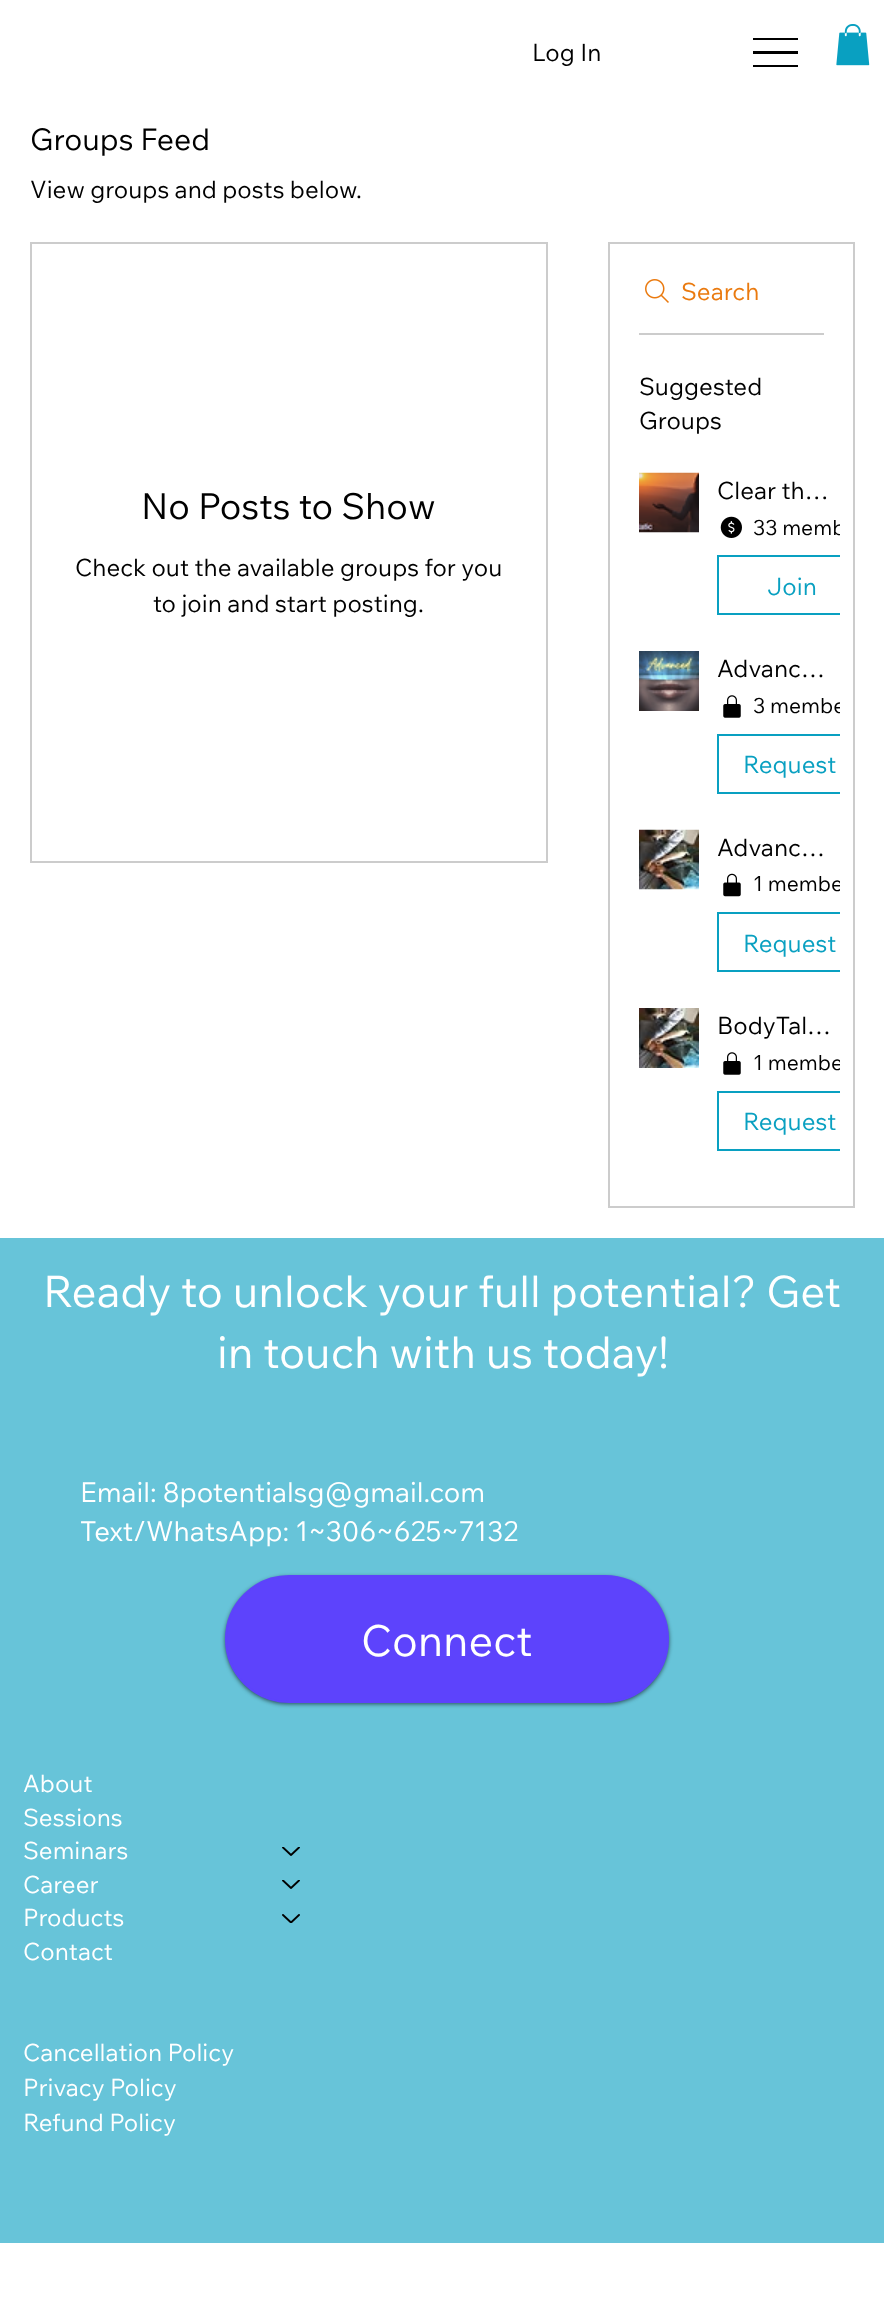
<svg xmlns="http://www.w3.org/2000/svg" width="884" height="2322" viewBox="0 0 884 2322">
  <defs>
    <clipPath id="clip1"><rect x="713" y="509" width="127" height="123"/></clipPath>
    <clipPath id="clip2"><rect x="713" y="687" width="127" height="123"/></clipPath>
    <clipPath id="clip3"><rect x="713" y="866" width="127" height="123"/></clipPath>
    <clipPath id="clip4"><rect x="713" y="1044" width="127" height="123"/></clipPath>
  </defs>
  <rect width="100%" height="100%" fill="rgb(255,255,255)"/>
  <text x="532" y="61" font-family="Wix Madefor Text" font-size="24" fill="rgb(0,0,0)">Log In</text>
  <rect x="753" y="38" width="45" height="2" fill="rgb(0,0,0)"/>
  <rect x="753" y="51" width="45" height="3" fill="rgb(0,0,0)"/>
  <rect x="753" y="65" width="45" height="2" fill="rgb(0,0,0)"/>
  <image x="836" y="24" width="34" height="42" href="pic1.png"/>
  <text x="30" y="150" font-family="Wix Madefor Text" font-size="30" fill="rgb(0,0,0)">Groups Feed</text>
  <text x="30" y="198" font-family="Wix Madefor Text" font-size="24" fill="rgb(0,0,0)">View groups and posts below.</text>
  <rect x="31" y="243" width="516" height="619" fill="none" stroke="rgb(204,204,204)" stroke-width="2"/>
  <text x="141" y="519" font-family="Wix Madefor Text" font-size="36" fill="rgb(0,0,0)">No Posts to Show</text>
  <g font-family="Wix Madefor Text" font-size="24" fill="rgb(0,0,0)">
    <text x="75" y="576">Check out the available groups for you</text>
    <text x="153" y="612">to join and start posting.</text>
  </g>
  <rect x="609" y="243" width="245" height="964" fill="none" stroke="rgb(204,204,204)" stroke-width="2"/>
  <image x="645" y="279" width="24" height="24" href="pic2.png"/>
  <text x="681" y="300" font-family="Wix Madefor Text" font-size="24" fill="rgb(234,122,15)">Search</text>
  <rect x="639" y="333" width="185" height="2" fill="rgb(204,204,204)"/>
  <g font-family="Wix Madefor Text" font-size="24" fill="rgb(0,0,0)">
    <text>
      <tspan x="639" y="395">Suggested</tspan>
      <tspan x="639" y="429">Groups</tspan>
    </text>
  </g>
  <image x="639" y="472" width="60" height="61" href="pic3.png"/>
  <text x="717" y="499" font-family="Wix Madefor Text" font-size="24" fill="rgb(0,0,0)">Clear th…</text>
  <image x="720" y="516" width="22" height="22" href="pic4.png"/>
  <g clip-path="url(#clip1)">
    <text x="753" y="535" font-family="Wix Madefor Text" font-size="21" fill="rgb(0,0,0)">33 memb</text>
    <rect x="718" y="556" width="148" height="58" fill="none" stroke="rgb(9,160,193)" stroke-width="2"/>
  </g>
  <text x="767" y="595" font-family="Wix Madefor Text" font-size="24" fill="rgb(9,160,193)">Join</text>
  <image x="639" y="651" width="60" height="60" href="pic5.png"/>
  <text x="717" y="677" font-family="Wix Madefor Text" font-size="24" fill="rgb(0,0,0)">Advanc…</text>
  <image x="723" y="695" width="18" height="23" href="pic6.png"/>
  <g clip-path="url(#clip2)">
    <text x="753" y="713" font-family="Wix Madefor Text" font-size="21" fill="rgb(0,0,0)">3 membe</text>
    <rect x="718" y="735" width="148" height="58" fill="none" stroke="rgb(9,160,193)" stroke-width="2"/>
  </g>
  <text x="743" y="773" font-family="Wix Madefor Text" font-size="24" fill="rgb(9,160,193)">Request</text>
  <image x="639" y="829" width="60" height="61" href="pic7.png"/>
  <text x="717" y="856" font-family="Wix Madefor Text" font-size="24" fill="rgb(0,0,0)">Advanc…</text>
  <image x="723" y="873" width="18" height="24" href="pic8.png"/>
  <g clip-path="url(#clip3)">
    <text x="753" y="891" font-family="Wix Madefor Text" font-size="21" fill="rgb(0,0,0)">1 membe</text>
    <rect x="718" y="913" width="148" height="58" fill="none" stroke="rgb(9,160,193)" stroke-width="2"/>
  </g>
  <text x="743" y="952" font-family="Wix Madefor Text" font-size="24" fill="rgb(9,160,193)">Request</text>
  <image x="639" y="1008" width="60" height="60" href="pic9.png"/>
  <text x="717" y="1034" font-family="Wix Madefor Text" font-size="24" fill="rgb(0,0,0)">BodyTal…</text>
  <image x="723" y="1052" width="18" height="23" href="pic6.png"/>
  <g clip-path="url(#clip4)">
    <text x="753" y="1070" font-family="Wix Madefor Text" font-size="21" fill="rgb(0,0,0)">1 membe</text>
    <rect x="718" y="1092" width="148" height="58" fill="none" stroke="rgb(9,160,193)" stroke-width="2"/>
  </g>
  <text x="743" y="1130" font-family="Wix Madefor Text" font-size="24" fill="rgb(9,160,193)">Request</text>
  <rect x="0" y="1238" width="884" height="1005" fill="rgb(103,196,217)"/>
  <g font-family="Wix Madefor Text" font-size="43.6" fill="rgb(255,255,255)">
    <text x="43" y="1307">Ready to unlock your full potential? Get</text>
    <text x="217" y="1368">in touch with us today!</text>
  </g>
  <g font-family="Wix Madefor Text" font-size="27.5" fill="rgb(255,255,255)">
    <text>
      <tspan x="80" y="1502">Email: 8potentialsg@gmail.com</tspan>
      <tspan x="80" y="1541">Text/WhatsApp: 1~306~625~7132</tspan>
    </text>
  </g>
  <rect x="225" y="1577" width="444" height="127" rx="63.5" fill="rgba(0,0,0,0.6)" filter="blur(2px)"/>
  <rect x="226" y="1576" width="442" height="126" rx="63" fill="rgb(93,67,252)" stroke="rgb(93,67,252)" stroke-width="2"/>
  <text x="361" y="1656" font-family="Wix Madefor Text" font-size="43" fill="rgb(255,255,255)">Connect</text>
  <g font-family="Wix Madefor Text" font-size="24" fill="rgb(255,255,255)">
    <text>
      <tspan x="23" y="1792">About</tspan>
      <tspan x="23" y="1826">Sessions</tspan>
      <tspan x="23" y="1859">Seminars</tspan>
    </text>
  </g>
  <image x="282" y="1847" width="18" height="9" href="pic10.png"/>
  <text x="23" y="1893" font-family="Wix Madefor Text" font-size="24" fill="rgb(255,255,255)">Career</text>
  <image x="282" y="1880" width="18" height="9" href="pic10.png"/>
  <text x="23" y="1926" font-family="Wix Madefor Text" font-size="24" fill="rgb(255,255,255)">Products</text>
  <image x="282" y="1914" width="18" height="9" href="pic11.png"/>
  <g font-family="Wix Madefor Text" font-size="24" fill="rgb(255,255,255)">
    <text x="23" y="1960">Contact</text>
    <text>
      <tspan x="23" y="2061">Cancellation Policy</tspan>
      <tspan x="23" y="2096">Privacy Policy</tspan>
      <tspan x="23" y="2131">Refund Policy</tspan>
    </text>
  </g>
</svg>
